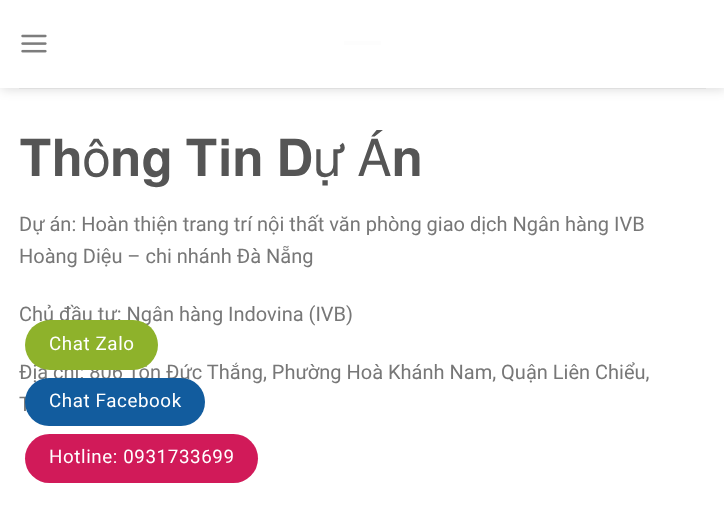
<svg xmlns="http://www.w3.org/2000/svg" width="724" height="515" viewBox="0 0 724 515">
  <defs>
    <clipPath id="clip1"><path d="M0 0H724V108H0ZM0 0H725V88H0Z" clip-rule="evenodd"/></clipPath>
  </defs>
  <rect width="100%" height="100%" fill="rgb(255,255,255)"/>
  <rect x="344" y="41" width="37" height="4" fill="rgb(230,230,230)"/>
  <g clip-path="url(#clip1)">
    <rect x="1" y="1" width="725" height="88" fill="rgba(0,0,0,0.15)" filter="blur(6px)"/>
  </g>
  <rect x="0" y="41" width="724" height="47" fill="rgba(255,255,255,0.9)"/>
  <image x="21" y="34" width="26" height="19" href="pic1.png"/>
  <rect x="19" y="88" width="687" height="1" fill="rgb(223,223,223)"/>
  <text x="19" y="176" font-family="FreeSans" font-size="51" fill="rgb(85,85,85)">𝐓𝐡ô𝐧𝐠 𝐓𝐢𝐧 𝐃ự Á𝐧</text>
  <g font-family="Roboto" font-size="20" fill="rgb(119,119,119)">
    <text>
      <tspan x="19" y="231">Dự án: Hoàn thiện trang trí nội thất văn phòng giao dịch Ngân hàng IVB</tspan>
      <tspan x="19" y="263">Hoàng Diệu – chi nhánh Đà Nẵng</tspan>
    </text>
    <text x="19" y="321">Chủ đầu tư: Ngân hàng Indovina (IVB)</text>
    <text>
      <tspan x="19" y="379">Địa chỉ: 806 Tôn Đức Thắng, Phường Hoà Khánh Nam, Quận Liên Chiểu,</tspan>
      <tspan x="19" y="411">T</tspan>
    </text>
  </g>
  <rect x="25" y="320" width="133" height="50" rx="25" fill="rgb(142,178,43)"/>
  <text x="49" y="350" font-family="Roboto" font-size="18.75" letter-spacing="0.6" fill="rgb(255,255,255)">Chat Zalo</text>
  <rect x="25" y="378" width="180" height="48" rx="24" fill="rgb(18,92,158)"/>
  <text x="49" y="407" font-family="Roboto" font-size="18.75" letter-spacing="0.6" fill="rgb(255,255,255)">Chat Facebook</text>
  <rect x="25" y="434" width="233" height="49" rx="24.5" fill="rgb(209,26,89)"/>
  <text x="49" y="463" font-family="Roboto" font-size="18.75" letter-spacing="0.6" fill="rgb(255,255,255)">Hotline: 0931733699</text>
</svg>
